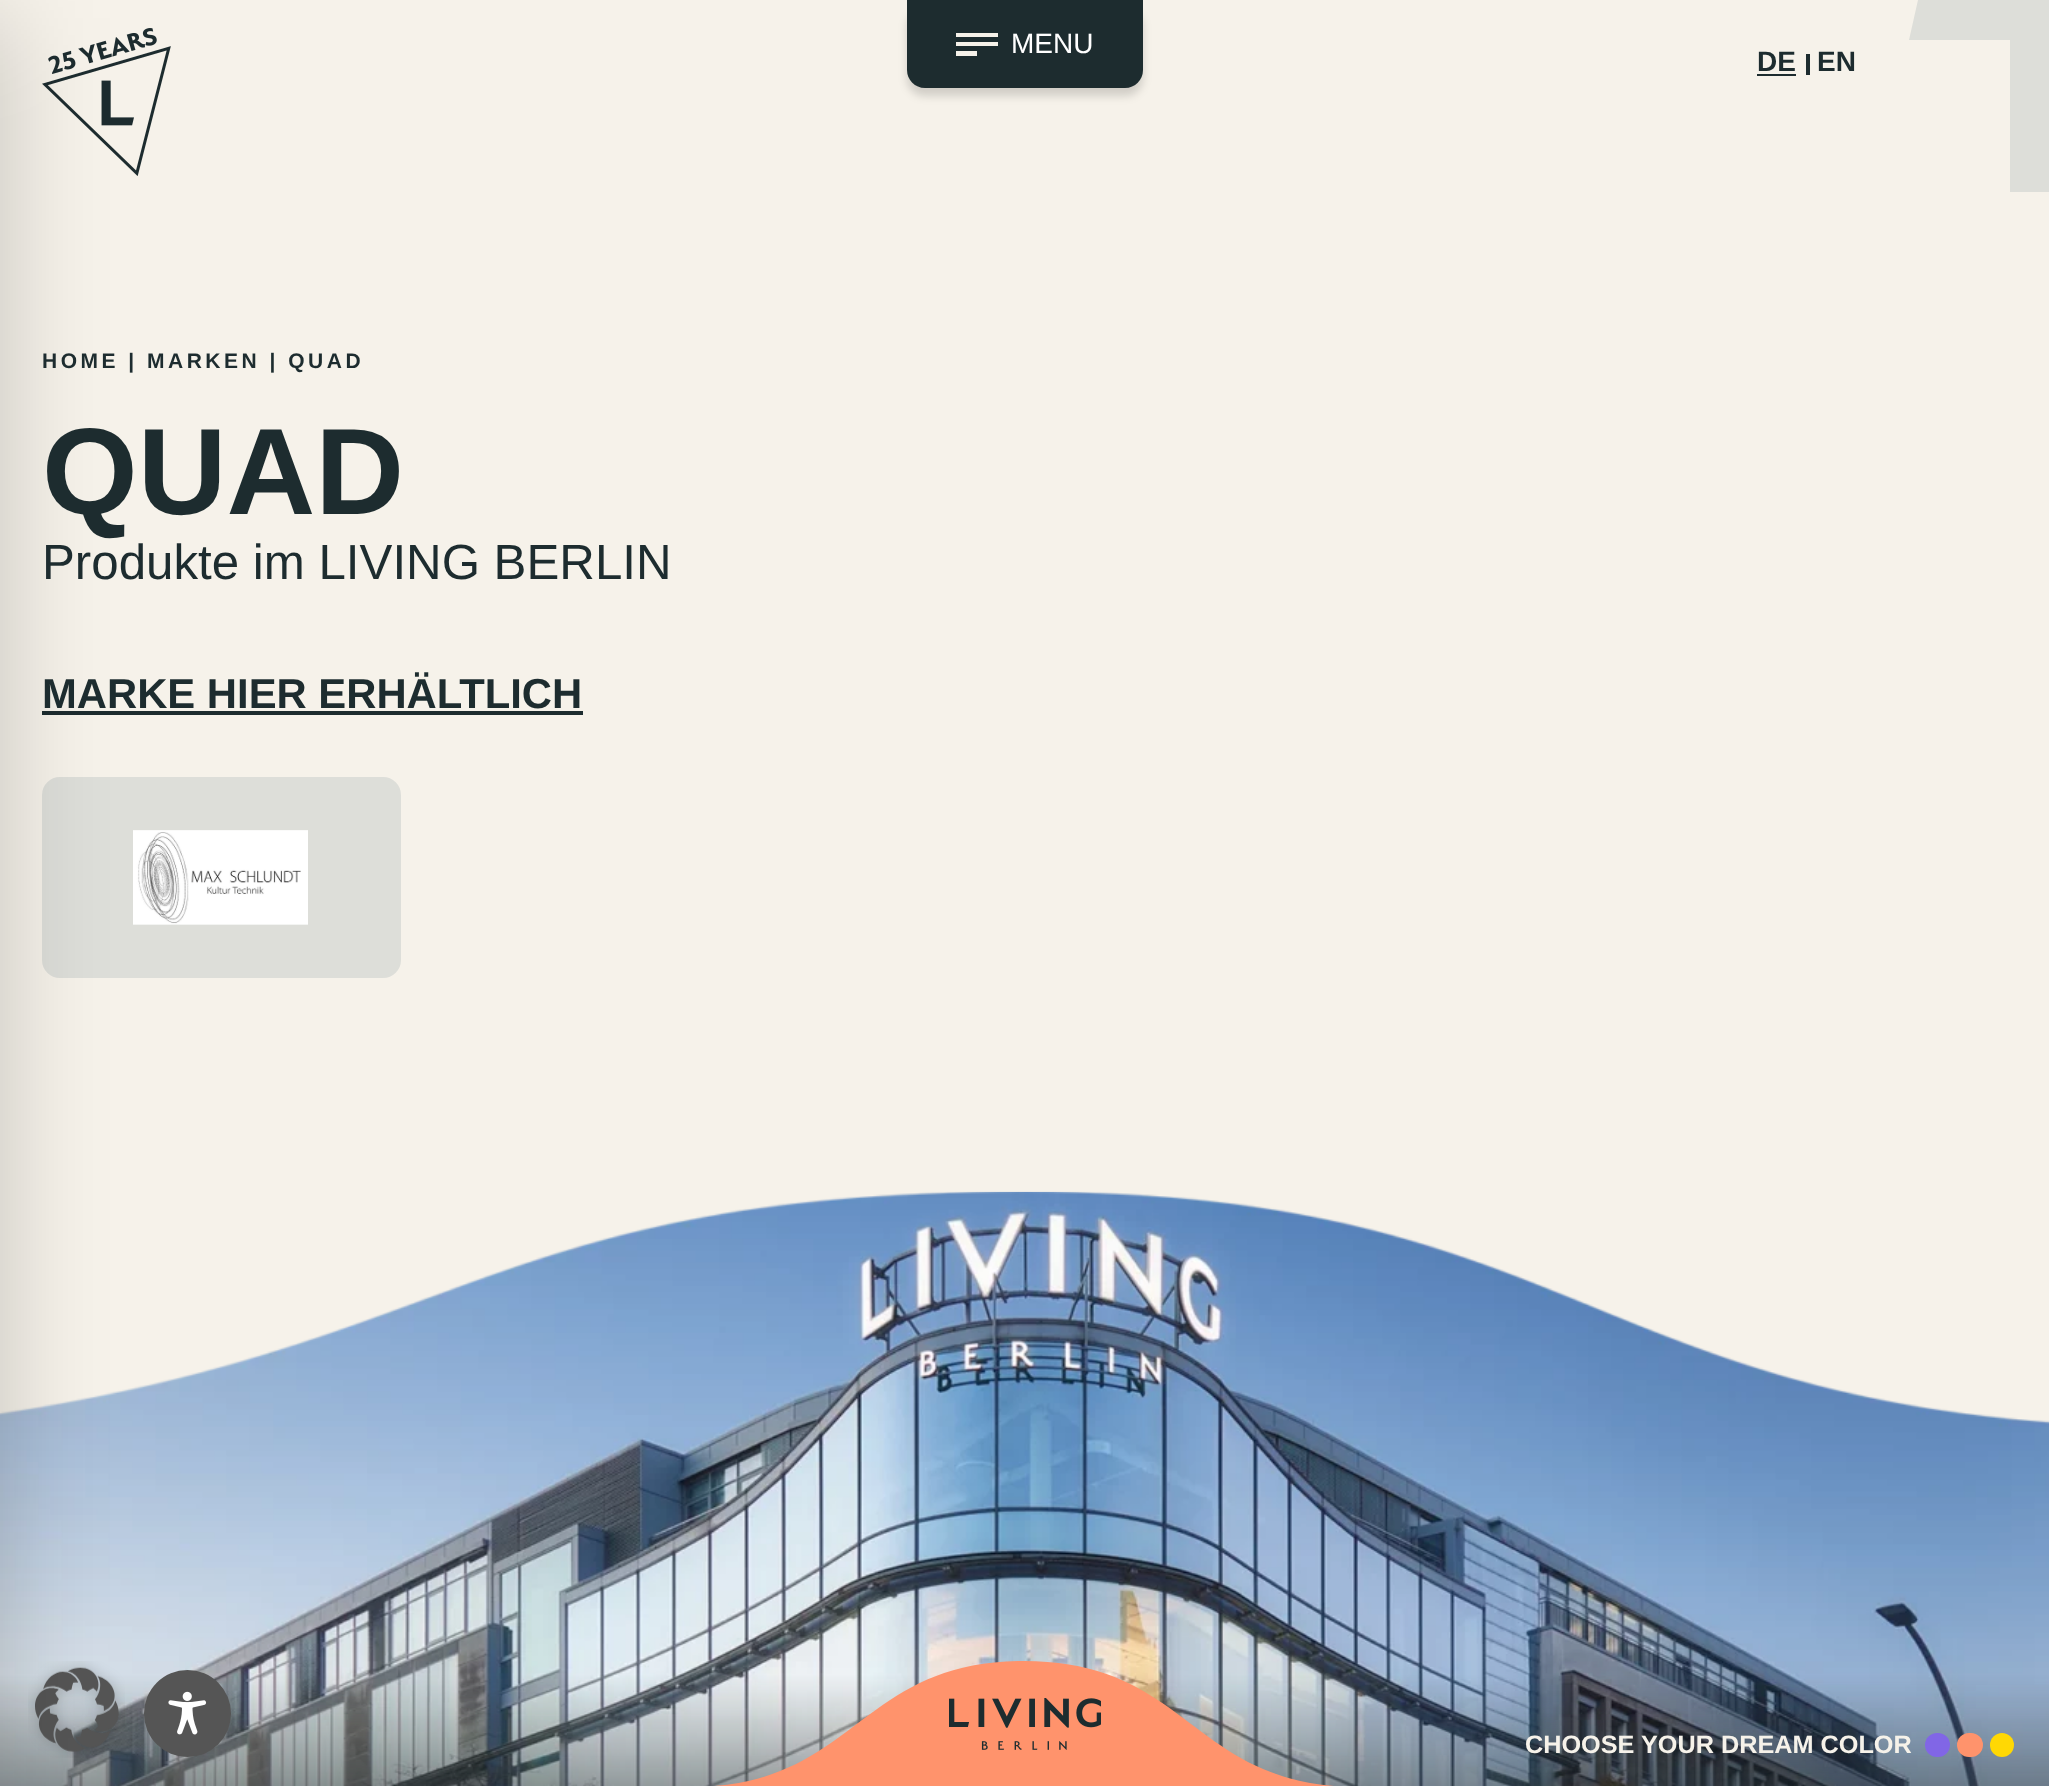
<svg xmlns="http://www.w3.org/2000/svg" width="2049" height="1786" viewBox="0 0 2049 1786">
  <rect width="100%" height="100%" fill="rgb(246,242,234)"/>
  <image x="42" y="28" width="129" height="148" href="pic1.png"/>
  <rect x="42" y="711" width="541" height="4" fill="rgb(29,44,47)"/>
  <rect x="43" y="778" width="357" height="199" rx="17" fill="rgb(221,222,217)" stroke="rgb(221,222,217)" stroke-width="2"/>
  <image x="133" y="830" width="175" height="95" href="pic2.png"/>
  <image x="0" y="1191" width="2049" height="595" href="pic4.png"/>
  <image x="28" y="1661" width="97" height="97" href="pic5.png"/>
  <circle cx="187.5" cy="1713.5" r="43.5" fill="rgb(85,85,85)"/>
  <rect x="-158" y="18" width="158" height="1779" fill="rgba(0,0,0,0.2)" filter="blur(52.5px)"/>
  <rect x="907" y="9" width="236" height="87" rx="18" fill="rgba(0,0,0,0.15)" filter="blur(4.5px)"/>
  <path d="M907 0H1143V70C1143 80 1135 88 1125 88H925C915 88 907 80 907 70Z" fill="rgb(29,44,47)"/>
  <rect x="956" y="33" width="42" height="4" fill="rgb(246,242,234)"/>
  <rect x="956" y="42" width="42" height="4" fill="rgb(246,242,234)"/>
  <rect x="956" y="51" width="21" height="5" fill="rgb(246,242,234)"/>
  <text x="1011" y="53" font-family="Liberation Sans" font-size="28" fill="rgb(255,255,255)">MENU</text>
  <text x="1757" y="71" font-family="Liberation Sans" font-size="28" font-weight="bold" fill="rgb(29,44,47)">DE</text>
  <rect x="1757" y="74" width="39" height="2" fill="rgb(29,44,47)"/>
  <rect x="1806" y="54" width="4" height="21" fill="rgb(29,44,47)"/>
  <text x="1817" y="71" font-family="Liberation Sans" font-size="28" font-weight="bold" fill="rgb(29,44,47)">EN</text>
  <path d="M2010 192H2049V0H1918L1909 40H2010Z" fill="rgb(221,222,217)"/>
  <text x="42" y="368" font-family="Liberation Sans" font-size="21" font-weight="bold" letter-spacing="3.5" fill="rgb(29,44,47)">HOME | MARKEN | QUAD</text>
  <text x="42" y="514" font-family="Liberation Sans" font-size="123" font-weight="bold" fill="rgb(29,44,47)">QUAD</text>
  <text x="42" y="579" font-family="Liberation Sans" font-size="49.25" fill="rgb(29,44,47)">Produkte im LIVING BERLIN</text>
  <text x="42" y="708" font-family="Liberation Sans" font-size="41.8" font-weight="bold" fill="rgb(29,44,47)">MARKE HIER ERHÄLTLICH</text>
  <path d="M690 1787C857 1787 857 1661 1024 1661C1191 1661 1191 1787 1359 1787" fill="rgb(255,147,108)"/>
  <image x="949" y="1698" width="152" height="52" href="pic3.png"/>
  <text x="1525" y="1753" font-family="Liberation Sans" font-size="25.25" font-weight="bold" fill="rgb(246,242,234)">CHOOSE YOUR DREAM COLOR</text>
  <rect x="1925" y="1733" width="25" height="24" rx="12" fill="rgb(129,102,230)"/>
  <rect x="1957" y="1733" width="26" height="24" rx="12" fill="rgb(255,147,108)"/>
  <circle cx="2002" cy="1745" r="12" fill="rgb(255,216,4)"/>
  <image x="168" y="1691" width="39" height="44" href="pic6.png"/>
</svg>
